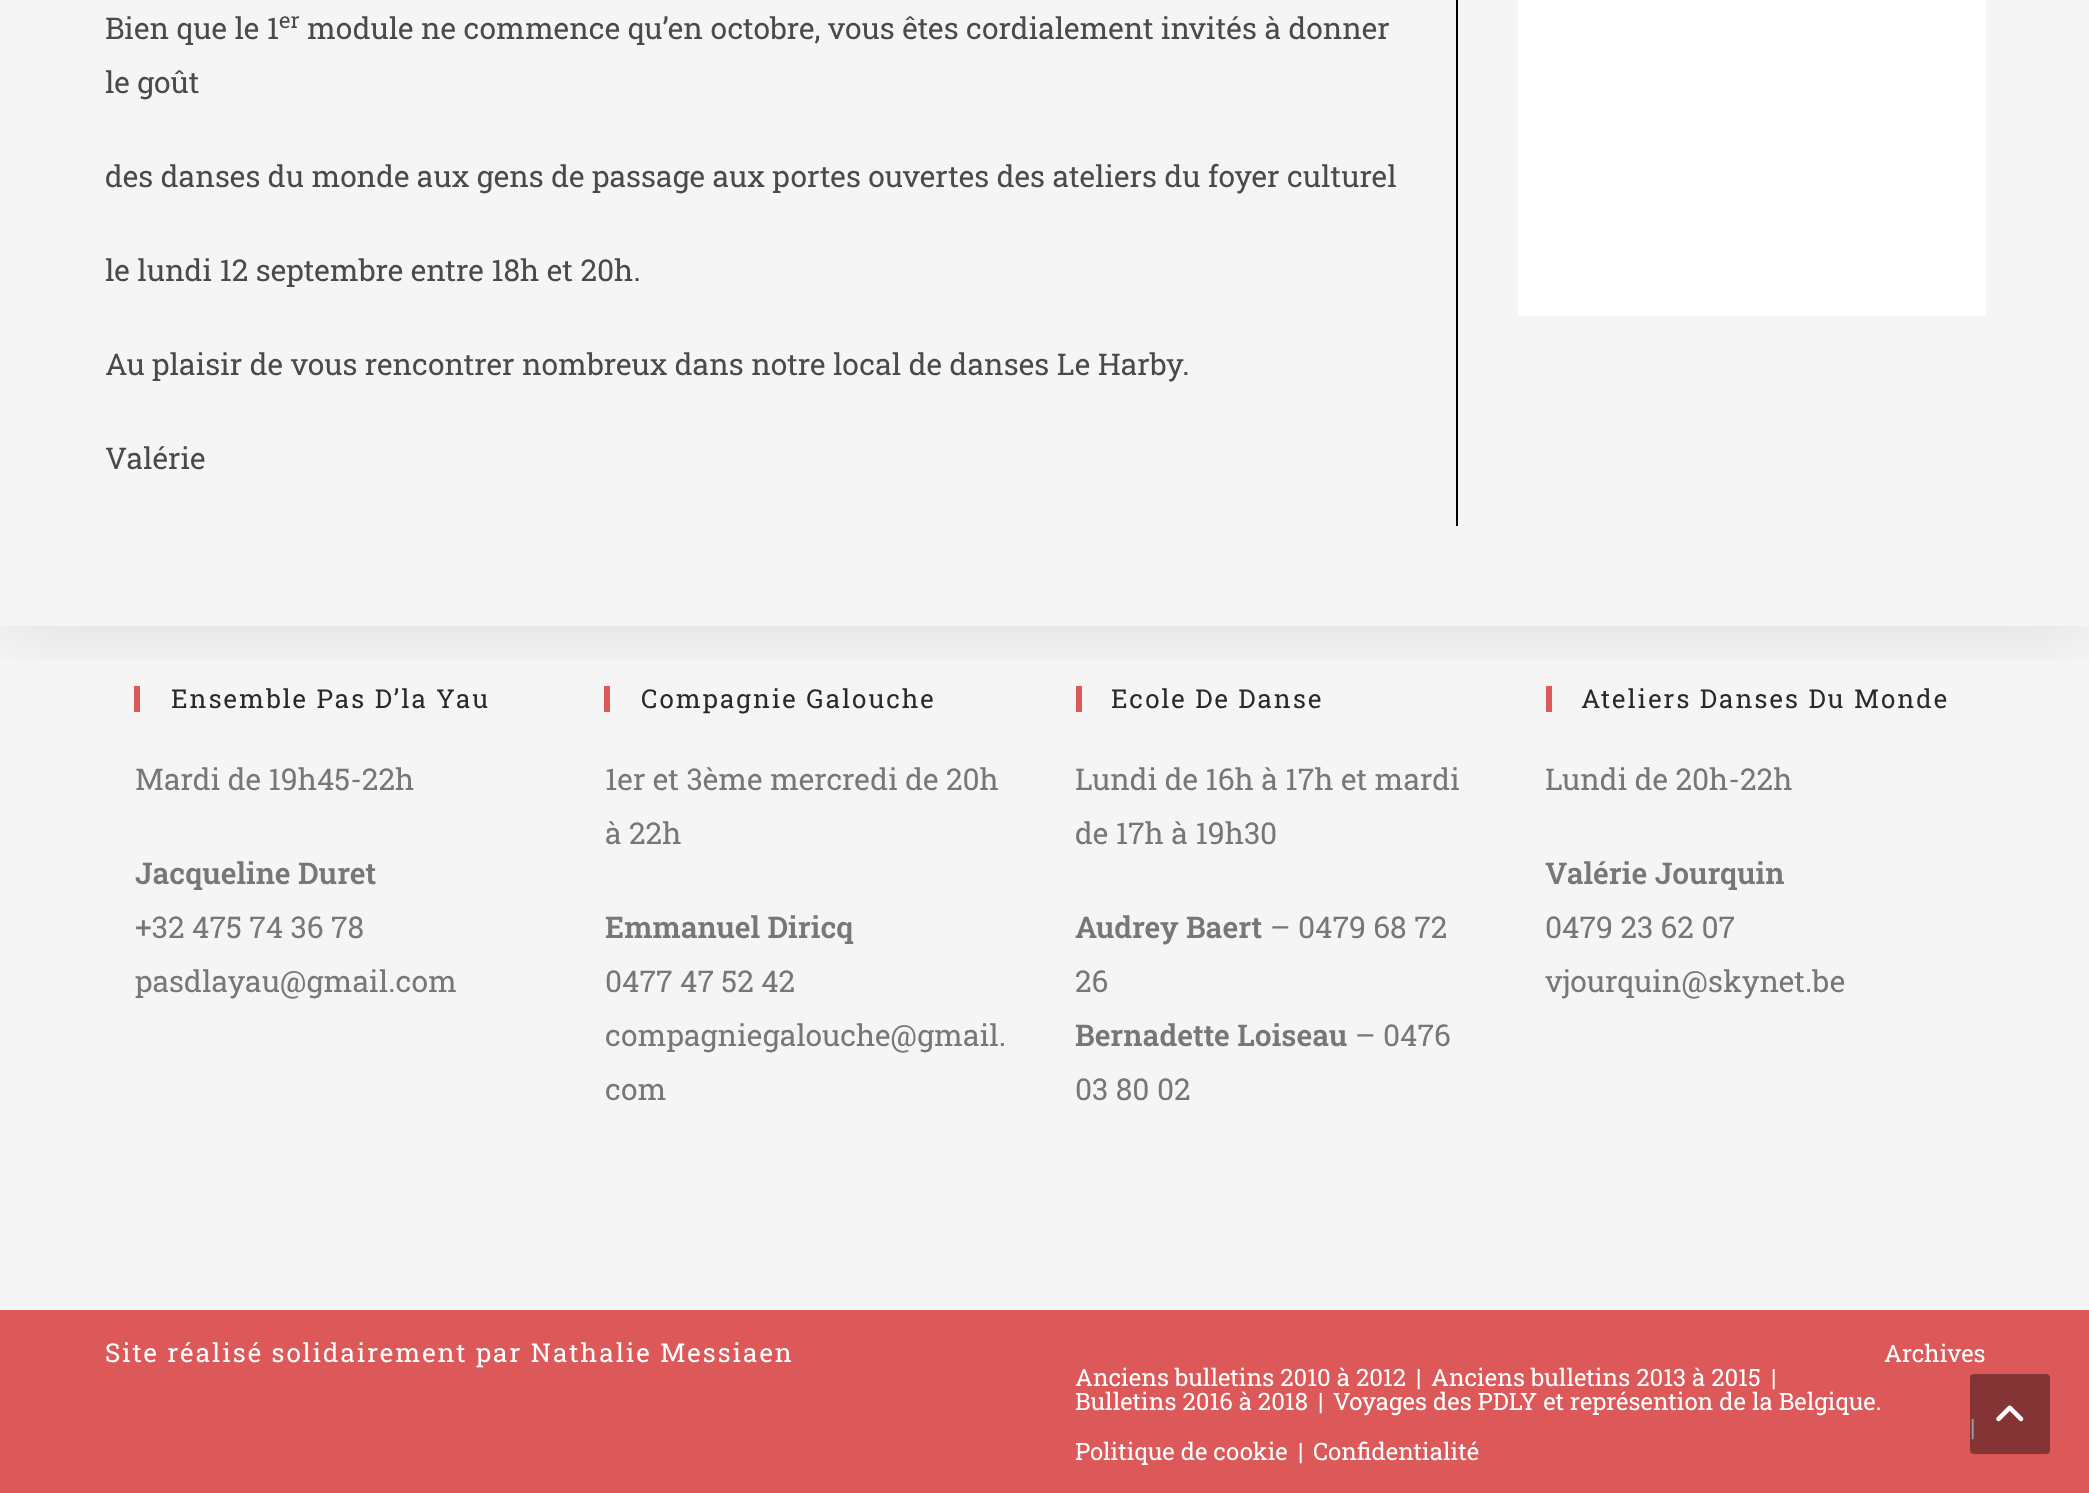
<svg xmlns="http://www.w3.org/2000/svg" width="2089" height="1493" viewBox="0 0 2089 1493">
  <defs>
    <clipPath id="clip1"><rect x="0" y="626" width="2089" height="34"/></clipPath>
  </defs>
  <rect width="100%" height="100%" fill="rgb(245,245,245)"/>
  <rect x="134" y="686" width="6" height="26" fill="rgb(221,88,88)"/>
  <rect x="604" y="686" width="6" height="26" fill="rgb(221,88,88)"/>
  <rect x="1076" y="686" width="6" height="26" fill="rgb(221,88,88)"/>
  <rect x="1546" y="686" width="6" height="26" fill="rgb(221,88,88)"/>
  <g clip-path="url(#clip1)">
    <rect x="0" y="-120" width="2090" height="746" fill="rgba(0,0,0,0.1)" filter="blur(40px)"/>
  </g>
  <rect x="1456" y="0" width="2" height="526" fill="rgb(0,0,0)"/>
  <text x="105" y="39" font-family="Roboto Slab" font-size="30" fill="rgb(74,74,74)">Bien que le 1</text>
  <text x="279" y="28" font-family="Roboto Slab" font-size="22" fill="rgb(74,74,74)">er</text>
  <g font-family="Roboto Slab" font-size="30" fill="rgb(74,74,74)">
    <text x="307" y="39">module ne commence qu’en octobre, vous êtes cordialement invités à donner</text>
    <text x="105" y="93">le goût</text>
    <text x="105" y="187">des danses du monde aux gens de passage aux portes ouvertes des ateliers du foyer culturel</text>
    <text x="105" y="281">le lundi 12 septembre entre 18h et 20h.</text>
    <text x="105" y="375">Au plaisir de vous rencontrer nombreux dans notre local de danses Le Harby.</text>
    <text x="105" y="469">Valérie</text>
  </g>
  <rect x="1518" y="0" width="468" height="316" fill="rgb(255,255,255)"/>
  <text x="171" y="708" font-family="Roboto Slab" font-size="26" letter-spacing="2" fill="rgb(41,41,41)">Ensemble Pas D’la Yau</text>
  <text x="135" y="790" font-family="Roboto Slab" font-size="30" fill="rgb(119,119,119)">Mardi de 19h45-22h</text>
  <text x="135" y="884" font-family="Roboto Slab" font-size="30" font-weight="600" fill="rgb(119,119,119)">Jacqueline Duret</text>
  <g font-family="Roboto Slab" font-size="30" fill="rgb(119,119,119)">
    <text>
      <tspan x="135" y="938">+32 475 74 36 78</tspan>
      <tspan x="135" y="992">pasdlayau@gmail.com</tspan>
    </text>
  </g>
  <text x="641" y="708" font-family="Roboto Slab" font-size="26" letter-spacing="2" fill="rgb(41,41,41)">Compagnie Galouche</text>
  <g font-family="Roboto Slab" font-size="30" fill="rgb(119,119,119)">
    <text>
      <tspan x="605" y="790">1er et 3ème mercredi de 20h</tspan>
      <tspan x="605" y="844">à 22h</tspan>
    </text>
  </g>
  <text x="605" y="938" font-family="Roboto Slab" font-size="30" font-weight="600" fill="rgb(119,119,119)">Emmanuel Diricq</text>
  <g font-family="Roboto Slab" font-size="30" fill="rgb(119,119,119)">
    <text>
      <tspan x="605" y="992">0477 47 52 42</tspan>
      <tspan x="605" y="1046">compagniegalouche@gmail.</tspan>
      <tspan x="605" y="1100">com</tspan>
    </text>
  </g>
  <text x="1111" y="708" font-family="Roboto Slab" font-size="26" letter-spacing="2" fill="rgb(41,41,41)">Ecole De Danse</text>
  <g font-family="Roboto Slab" font-size="30" fill="rgb(119,119,119)">
    <text>
      <tspan x="1075" y="790">Lundi de 16h à 17h et mardi</tspan>
      <tspan x="1075" y="844">de 17h à 19h30</tspan>
    </text>
  </g>
  <text x="1075" y="938" font-family="Roboto Slab" font-size="30" font-weight="600" fill="rgb(119,119,119)">Audrey Baert</text>
  <g font-family="Roboto Slab" font-size="30" fill="rgb(119,119,119)">
    <text x="1270" y="938">– 0479 68 72</text>
    <text x="1075" y="992">26</text>
  </g>
  <text x="1075" y="1046" font-family="Roboto Slab" font-size="30" font-weight="600" fill="rgb(119,119,119)">Bernadette Loiseau</text>
  <g font-family="Roboto Slab" font-size="30" fill="rgb(119,119,119)">
    <text x="1355" y="1046">– 0476</text>
    <text x="1075" y="1100">03 80 02</text>
  </g>
  <text x="1581" y="708" font-family="Roboto Slab" font-size="26" letter-spacing="2" fill="rgb(41,41,41)">Ateliers Danses Du Monde</text>
  <text x="1545" y="790" font-family="Roboto Slab" font-size="30" fill="rgb(119,119,119)">Lundi de 20h-22h</text>
  <text x="1545" y="884" font-family="Roboto Slab" font-size="30" font-weight="600" fill="rgb(119,119,119)">Valérie Jourquin</text>
  <g font-family="Roboto Slab" font-size="30" fill="rgb(119,119,119)">
    <text>
      <tspan x="1545" y="938">0479 23 62 07</tspan>
      <tspan x="1545" y="992">vjourquin@skynet.be</tspan>
    </text>
  </g>
  <rect x="0" y="1310" width="2089" height="183" fill="rgb(221,88,88)"/>
  <text x="105" y="1362" font-family="Roboto Slab" font-size="26" letter-spacing="2" fill="rgb(255,255,255)">Site réalisé solidairement par Nathalie Messiaen</text>
  <g font-family="Roboto Slab" font-size="24" fill="rgb(255,255,255)">
    <text x="1884" y="1362">Archives</text>
    <text x="1075" y="1386">Anciens bulletins 2010 à 2012</text>
    <text x="1416" y="1386">|</text>
    <text x="1431" y="1386">Anciens bulletins 2013 à 2015</text>
    <text x="1771" y="1386">|</text>
    <text x="1075" y="1410">Bulletins 2016 à 2018</text>
    <text x="1318" y="1410">|</text>
    <text x="1333" y="1410">Voyages des PDLY et représention de la Belgique.</text>
    <text x="1970" y="1436">|</text>
    <text x="1075" y="1460">Politique de cookie</text>
    <text x="1298" y="1460">|</text>
    <text x="1313" y="1460">Confidentialité</text>
  </g>
  <rect x="1970" y="1374" width="80" height="80" rx="4" fill="rgba(0,0,0,0.4)"/>
  <image x="1996" y="1405" width="28" height="17" href="pic1.png"/>
</svg>
